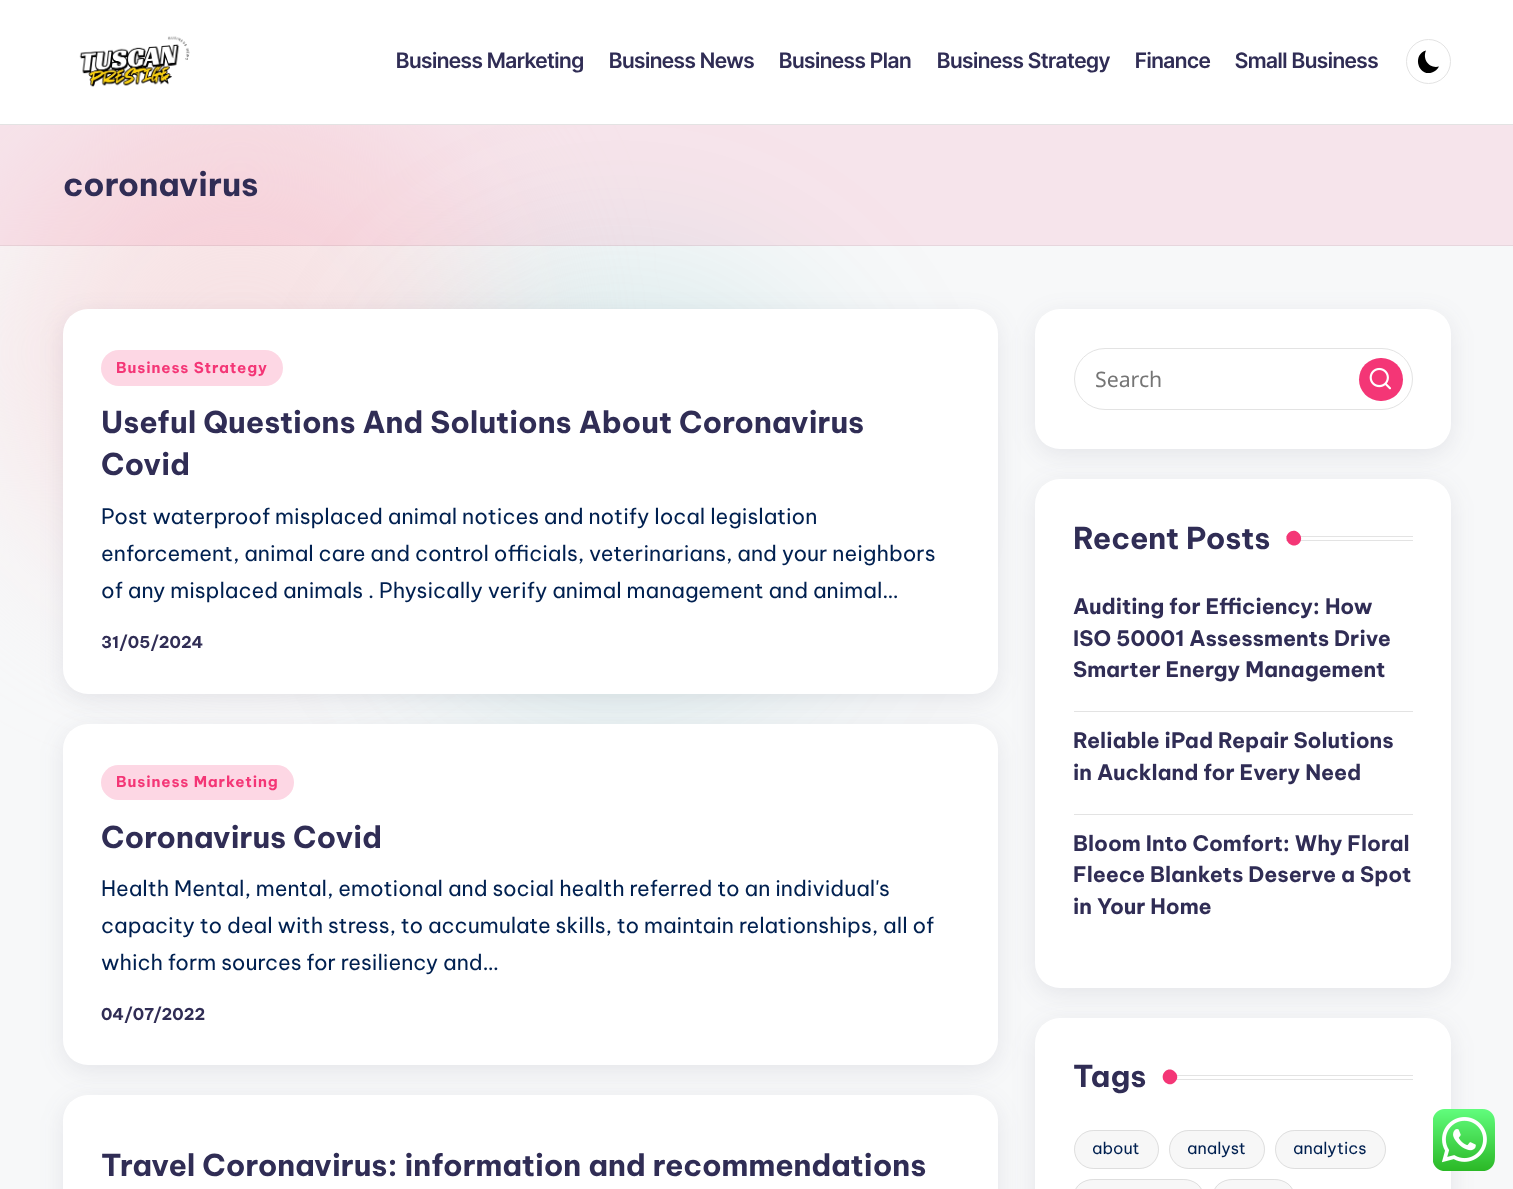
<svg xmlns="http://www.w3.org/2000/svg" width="1513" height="1189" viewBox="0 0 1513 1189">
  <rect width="100%" height="100%" fill="rgb(247,248,249)"/>
  <rect x="0" y="113" width="480" height="480" rx="240" fill="rgb(247,227,229)" filter="blur(80px)"/>
  <rect x="380" y="250" width="480" height="480" rx="240" fill="rgba(4,134,139,0.1)" filter="blur(80px)"/>
  <rect x="0" y="0" width="1513" height="124" fill="rgb(255,255,255)"/>
  <rect x="0" y="124" width="1513" height="1" fill="rgb(227,227,227)"/>
  <image x="79" y="36" width="111" height="51" href="pic1.png"/>
  <g font-family="Inter Tight" font-size="21.25" font-weight="600" fill="rgb(48,45,85)">
    <text x="396" y="68">Business Marketing</text>
    <text x="609" y="68">Business News</text>
    <text x="779" y="68">Business Plan</text>
    <text x="937" y="68">Business Strategy</text>
    <text x="1135" y="68">Finance</text>
    <text x="1235" y="68">Small Business</text>
  </g>
  <circle cx="1428.5" cy="61.5" r="22" fill="none" stroke="rgb(227,227,227)"/>
  <path d="M1439 66.5C1429.5 69 1422 59.5 1426 50.5C1412 54.5 1418 77 1432 72.5C1435 71.5 1437.5 69.5 1439 66.5Z" fill="rgb(0,0,0)"/>
  <rect x="0" y="125" width="1513" height="121" fill="rgba(244,54,118,0.1)"/>
  <rect x="0" y="245" width="1513" height="1" fill="rgba(0,0,0,0.06)"/>
  <text x="63" y="196" font-family="Be Vietnam Pro" font-size="32.5" font-weight="bold" fill="rgb(48,45,85)">coronavirus</text>
  <rect x="63" y="315" width="935" height="385" rx="25" fill="rgba(69,67,96,0.1)" filter="blur(12.5px)"/>
  <rect x="63" y="309" width="935" height="385" rx="25" fill="rgb(255,255,255)"/>
  <rect x="101" y="350" width="182" height="36" rx="18" fill="rgb(253,215,228)"/>
  <text x="116" y="373" font-family="Be Vietnam Pro" font-size="15" font-weight="bold" letter-spacing="0.9" fill="rgb(244,54,118)">Business Strategy</text>
  <g font-family="Be Vietnam Pro" font-size="30" font-weight="bold" fill="rgb(48,45,85)">
    <text>
      <tspan x="101" y="433">Useful Questions And Solutions About Coronavirus</tspan>
      <tspan x="101" y="475">Covid</tspan>
    </text>
  </g>
  <g font-family="Be Vietnam Pro" font-size="21.25" fill="rgb(0,32,80)">
    <text>
      <tspan x="101" y="524">Post waterproof misplaced animal notices and notify local legislation</tspan>
      <tspan x="101" y="561">enforcement, animal care and control officials, veterinarians, and your neighbors</tspan>
      <tspan x="101" y="598">of any misplaced animals . Physically verify animal management and animal…</tspan>
    </text>
  </g>
  <text x="101" y="648" font-family="Be Vietnam Pro" font-size="16.25" font-weight="bold" fill="rgb(48,45,85)">31/05/2024</text>
  <rect x="63" y="730" width="935" height="341" rx="25" fill="rgba(69,67,96,0.1)" filter="blur(12.5px)"/>
  <rect x="63" y="724" width="935" height="341" rx="25" fill="rgb(255,255,255)"/>
  <rect x="101" y="765" width="193" height="35" rx="17.5" fill="rgb(253,215,228)"/>
  <text x="116" y="787" font-family="Be Vietnam Pro" font-size="15" font-weight="bold" letter-spacing="0.9" fill="rgb(244,54,118)">Business Marketing</text>
  <text x="101" y="848" font-family="Be Vietnam Pro" font-size="30" font-weight="bold" fill="rgb(48,45,85)">Coronavirus Covid</text>
  <g font-family="Be Vietnam Pro" font-size="21.25" fill="rgb(0,32,80)">
    <text>
      <tspan x="101" y="896">Health Mental, mental, emotional and social health referred to an individual's</tspan>
      <tspan x="101" y="933">capacity to deal with stress, to accumulate skills, to maintain relationships, all of</tspan>
      <tspan x="101" y="970">which form sources for resiliency and…</tspan>
    </text>
  </g>
  <text x="101" y="1020" font-family="Be Vietnam Pro" font-size="16.25" font-weight="bold" fill="rgb(48,45,85)">04/07/2022</text>
  <rect x="63" y="1101" width="935" height="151" rx="25" fill="rgba(69,67,96,0.1)" filter="blur(12.5px)"/>
  <rect x="63" y="1095" width="935" height="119" rx="25" fill="rgb(255,255,255)"/>
  <text x="101" y="1176" font-family="Be Vietnam Pro" font-size="30" font-weight="bold" fill="rgb(48,45,85)">Travel Coronavirus: information and recommendations</text>
  <rect x="1035" y="315" width="416" height="140" rx="25" fill="rgba(69,67,96,0.1)" filter="blur(12.5px)"/>
  <rect x="1035" y="309" width="416" height="140" rx="25" fill="rgb(255,255,255)"/>
  <rect x="1074.5" y="348.5" width="338" height="61" rx="30.5" fill="none" stroke="rgb(227,227,227)"/>
  <text x="1095" y="387" font-family="Noto Sans" font-size="21.25" fill="rgb(117,117,117)">Search</text>
  <rect x="1359" y="358" width="44" height="43" rx="21.5" fill="rgb(244,54,118)"/>
  <image x="1369" y="367" width="22" height="23" href="pic2.png"/>
  <rect x="1035" y="485" width="416" height="509" rx="25" fill="rgba(69,67,96,0.1)" filter="blur(12.5px)"/>
  <rect x="1035" y="479" width="416" height="509" rx="25" fill="rgb(255,255,255)"/>
  <text x="1073" y="549" font-family="Be Vietnam Pro" font-size="30" font-weight="bold" fill="rgb(48,45,85)">Recent Posts</text>
  <rect x="1286" y="536" width="127" height="1" fill="rgb(227,227,227)"/>
  <rect x="1286" y="540" width="127" height="1" fill="rgb(227,227,227)"/>
  <path d="M1288.5 533C1295.5 526 1305.5 536.5 1299 543.5C1292 550 1282 539.5 1288.5 533Z" fill="rgb(244,54,118)"/>
  <g font-family="Be Vietnam Pro" font-size="21.25" font-weight="bold" fill="rgb(48,45,85)">
    <text>
      <tspan x="1073" y="614">Auditing for Efficiency: How</tspan>
      <tspan x="1073" y="646">ISO 50001 Assessments Drive</tspan>
      <tspan x="1073" y="677">Smarter Energy Management</tspan>
    </text>
  </g>
  <rect x="1074" y="711" width="339" height="1" fill="rgb(227,227,227)"/>
  <g font-family="Be Vietnam Pro" font-size="21.25" font-weight="bold" fill="rgb(48,45,85)">
    <text>
      <tspan x="1073" y="748">Reliable iPad Repair Solutions</tspan>
      <tspan x="1073" y="780">in Auckland for Every Need</tspan>
    </text>
  </g>
  <rect x="1074" y="814" width="339" height="1" fill="rgb(227,227,227)"/>
  <g font-family="Be Vietnam Pro" font-size="21.25" font-weight="bold" fill="rgb(48,45,85)">
    <text>
      <tspan x="1073" y="851">Bloom Into Comfort: Why Floral</tspan>
      <tspan x="1073" y="882">Fleece Blankets Deserve a Spot</tspan>
      <tspan x="1073" y="914">in Your Home</tspan>
    </text>
  </g>
  <rect x="1035" y="1024" width="416" height="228" rx="25" fill="rgba(69,67,96,0.1)" filter="blur(12.5px)"/>
  <rect x="1035" y="1018" width="416" height="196" rx="25" fill="rgb(255,255,255)"/>
  <text x="1073" y="1087" font-family="Be Vietnam Pro" font-size="30" font-weight="bold" fill="rgb(48,45,85)">Tags</text>
  <rect x="1177" y="1075" width="236" height="1" fill="rgb(227,227,227)"/>
  <rect x="1163" y="1079" width="250" height="1" fill="rgb(227,227,227)"/>
  <path d="M1165 1071.5C1171.5 1065 1182 1075.5 1175 1082C1168.5 1089 1158 1078.5 1165 1071.5Z" fill="rgb(244,54,118)"/>
  <rect x="1074" y="1130" width="85" height="39" rx="19.5" fill="rgb(247,247,247)"/>
  <rect x="1074.5" y="1130.5" width="84" height="38" rx="19" fill="none" stroke="rgba(185,185,185,0.4)"/>
  <text x="1092" y="1154" font-family="Be Vietnam Pro" font-size="16.25" fill="rgb(0,32,80)">about</text>
  <rect x="1169" y="1130" width="96" height="39" rx="19.5" fill="rgb(247,247,247)"/>
  <rect x="1169.5" y="1130.5" width="95" height="38" rx="19" fill="none" stroke="rgba(185,185,185,0.4)"/>
  <text x="1187" y="1154" font-family="Be Vietnam Pro" font-size="16.25" fill="rgb(0,32,80)">analyst</text>
  <rect x="1275" y="1130" width="111" height="39" rx="19.5" fill="rgb(247,247,247)"/>
  <rect x="1275.5" y="1130.5" width="110" height="38" rx="19" fill="none" stroke="rgba(185,185,185,0.4)"/>
  <text x="1293" y="1154" font-family="Be Vietnam Pro" font-size="16.25" fill="rgb(0,32,80)">analytics</text>
  <rect x="1074" y="1179" width="129" height="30" rx="19.5" fill="rgb(247,247,247)"/>
  <rect x="1074.5" y="1179.5" width="128" height="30" rx="19" fill="none" stroke="rgba(185,185,185,0.4)"/>
  <rect x="1213" y="1179" width="81" height="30" rx="19.5" fill="rgb(247,247,247)"/>
  <rect x="1213.5" y="1179.5" width="80" height="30" rx="19" fill="none" stroke="rgba(185,185,185,0.4)"/>
  <image x="1433" y="1109" width="62" height="62" href="pic3.png"/>
</svg>
